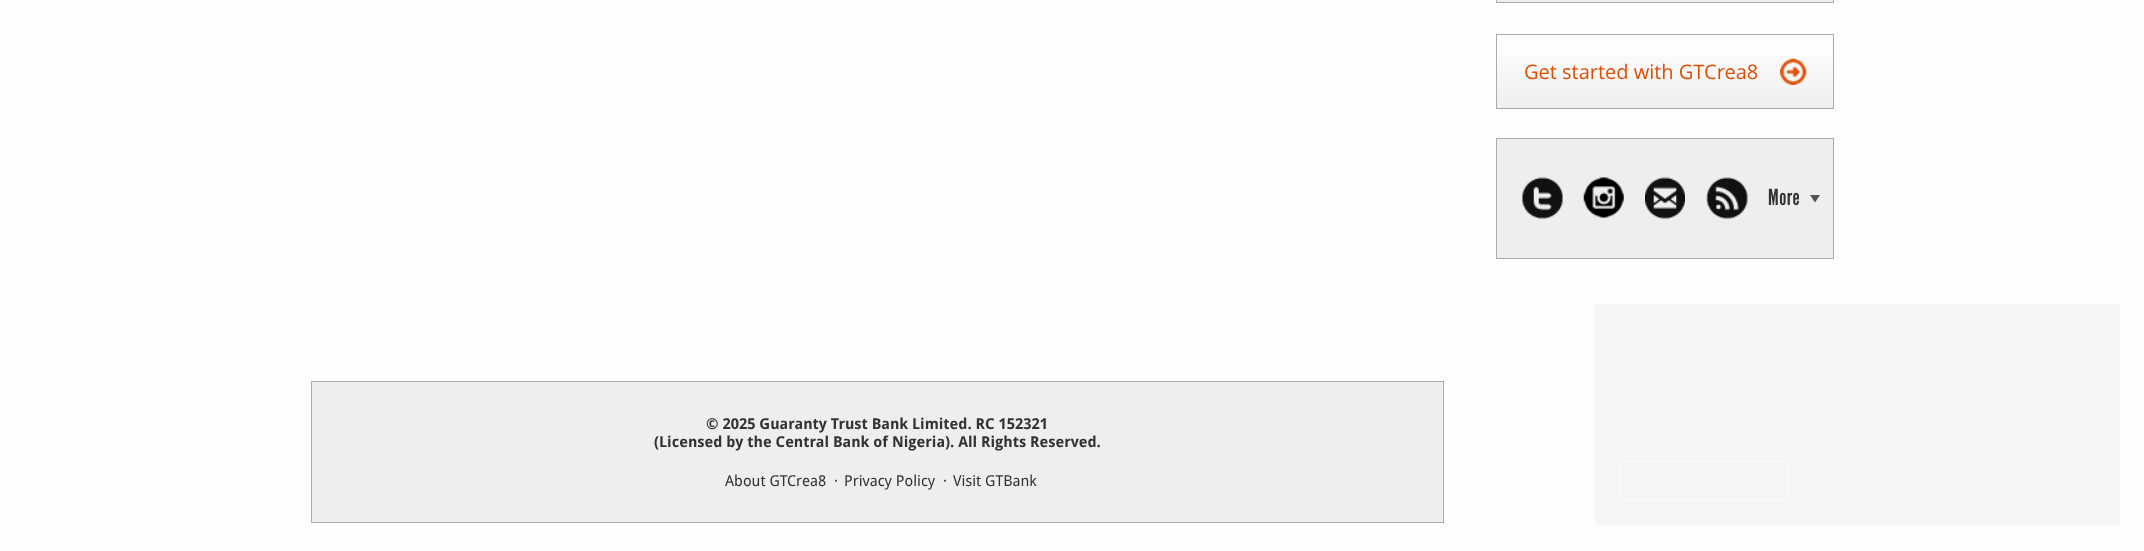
<svg xmlns="http://www.w3.org/2000/svg" width="2144" height="551" viewBox="0 0 2144 551">
  <defs>
    <linearGradient id="g1" gradientUnits="userSpaceOnUse" x1="1665" y1="35" x2="1665" y2="108"><stop offset="0" stop-color="rgb(255,255,255)"/><stop offset="1" stop-color="rgb(239,239,239)"/></linearGradient>
  </defs>
  <rect width="100%" height="100%" fill="rgb(253,253,253)"/>
  <rect x="1496.5" y="-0.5" width="337" height="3" fill="rgb(238,238,238)" stroke="rgb(171,171,171)"/>
  <rect x="1497" y="56" width="336" height="52" fill="url(#g1)"/>
  <rect x="1496.5" y="34.5" width="337" height="74" fill="none" stroke="rgb(170,170,170)"/>
  <text x="1524" y="79" font-family="Open Sans" font-size="20" fill="rgb(221,78,5)">Get started with GTCrea8</text>
  <image x="1780" y="58" width="27" height="27" href="pic1.png"/>
  <rect x="1496.5" y="138.5" width="337" height="120" fill="rgb(238,238,238)" stroke="rgb(171,171,171)"/>
  <image x="1522" y="177" width="41" height="42" href="pic2.png"/>
  <image x="1583" y="177" width="41" height="41" href="pic3.png"/>
  <image x="1645" y="177" width="40" height="42" href="pic4.png"/>
  <image x="1706" y="177" width="42" height="42" href="pic5.png"/>
  <text x="1768" y="205" font-family="League Gothic" font-size="22" letter-spacing="0.5" fill="rgb(51,51,51)">More</text>
  <path d="M1810 195H1820L1815 202.5Z" fill="rgb(85,85,85)"/>
  <rect x="311.5" y="381.5" width="1132" height="141" fill="rgb(238,238,238)" stroke="rgb(172,172,172)"/>
  <g font-family="Droid Sans" font-size="15" font-weight="bold" fill="rgb(51,51,51)">
    <text x="706" y="429">© 2025 Guaranty Trust Bank Limited. RC 152321</text>
    <text x="654" y="447">(Licensed by the Central Bank of Nigeria). All Rights Reserved.</text>
  </g>
  <g font-family="Droid Sans" font-size="15" fill="rgb(51,51,51)">
    <text x="725" y="486">About GTCrea8</text>
    <text x="834" y="486">·</text>
    <text x="844" y="486">Privacy Policy</text>
    <text x="943" y="486">·</text>
    <text x="953" y="486">Visit GTBank</text>
  </g>
  <rect x="1595" y="304" width="525" height="222" rx="4" fill="rgb(246,246,246)"/>
  <rect x="1620.5" y="461.5" width="168" height="39" rx="2" fill="none" stroke="rgb(253,253,253)"/>
</svg>
